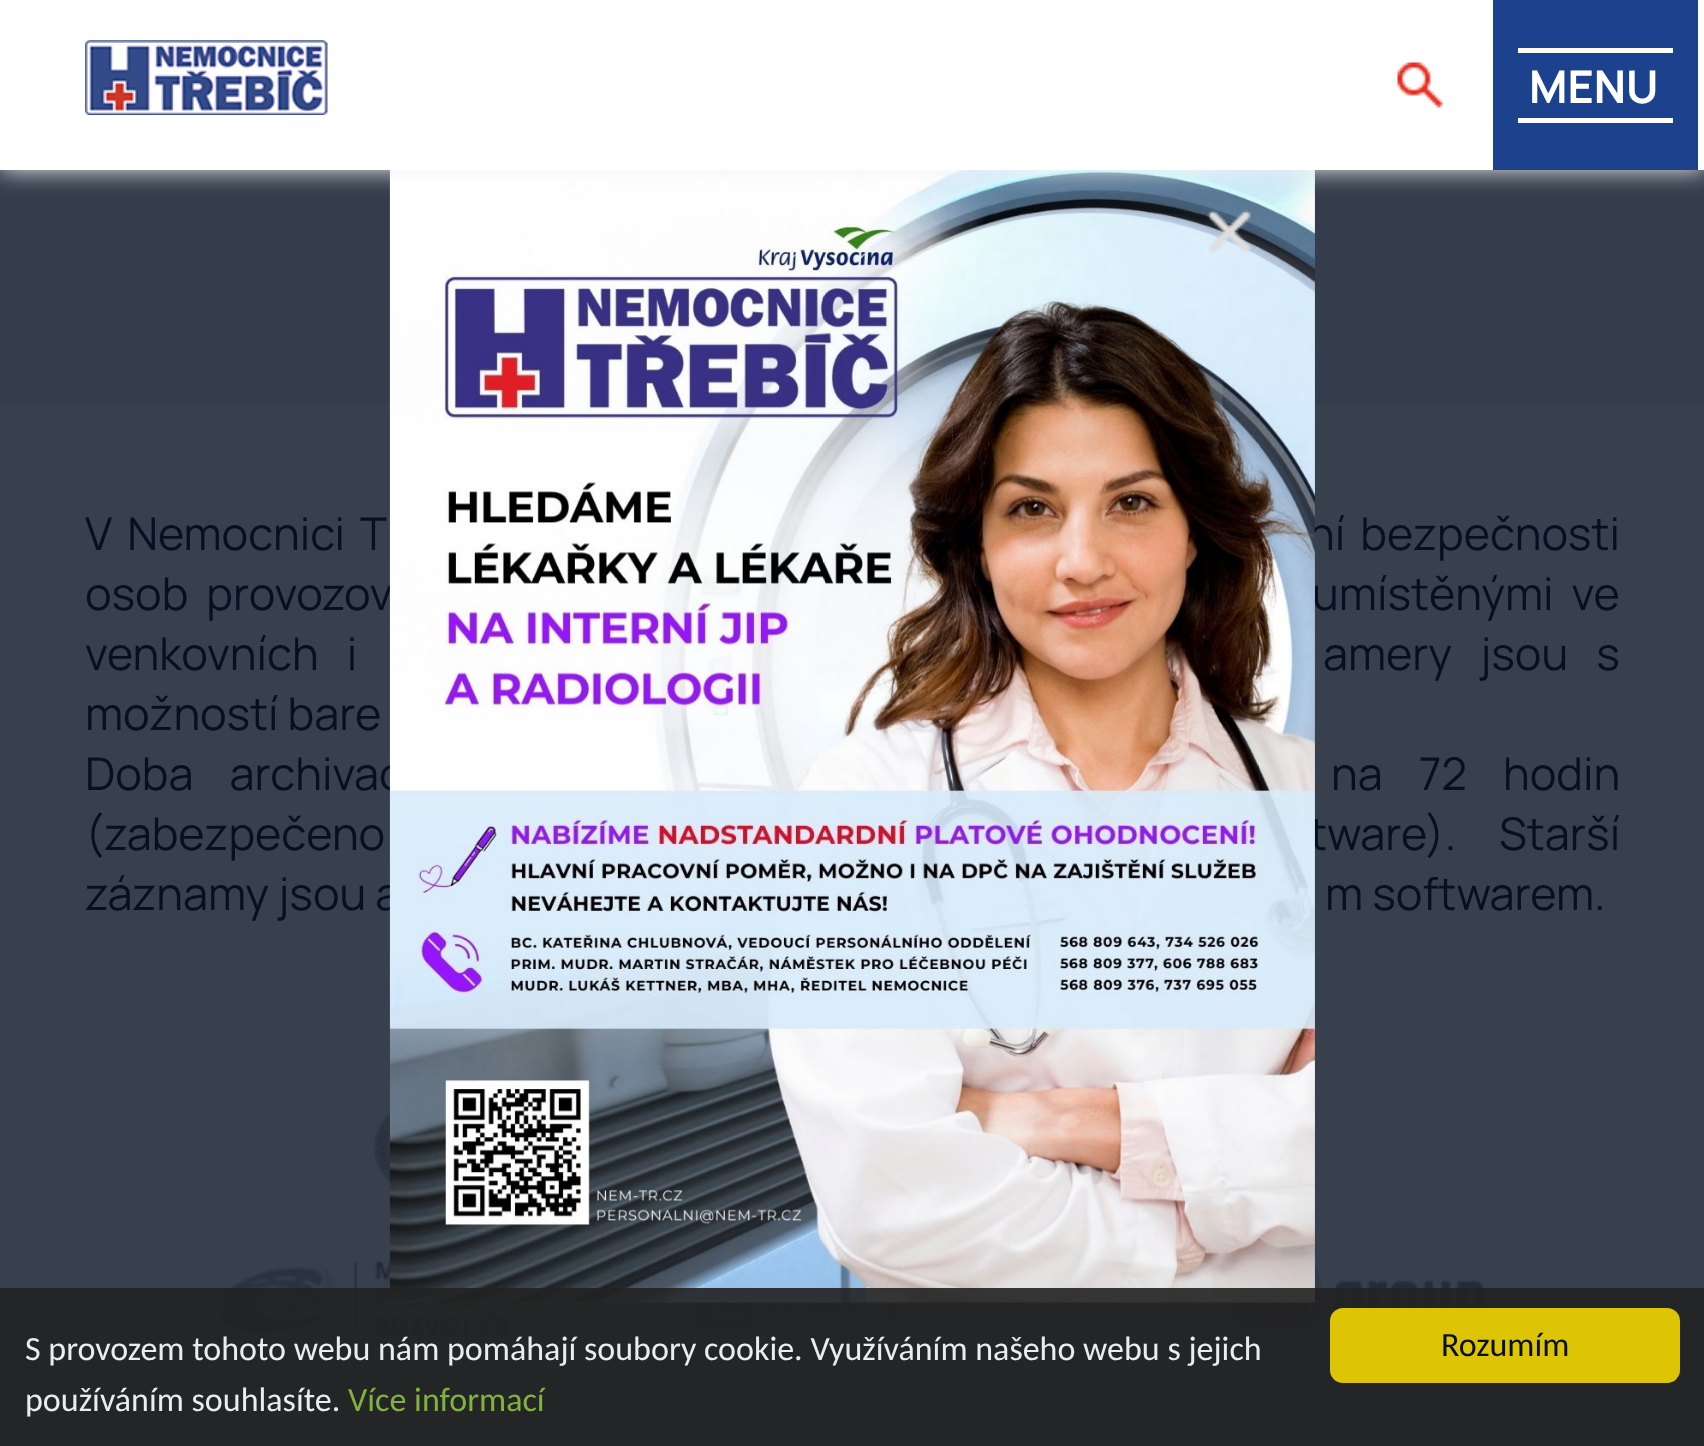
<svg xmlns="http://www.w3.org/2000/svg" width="1704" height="1446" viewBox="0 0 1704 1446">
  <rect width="100%" height="100%" fill="rgb(53,61,76)"/>
  <rect x="0" y="403" width="1704" height="1020" fill="rgb(56,64,78)"/>
  <g font-family="Manrope" font-size="45" fill="rgb(6,16,34)">
    <text x="1308" y="550" word-spacing="6">ní bezpečnosti</text>
    <text x="85" y="610" word-spacing="9">osob provozov</text>
    <text x="1312" y="610" word-spacing="9">umístěnými ve</text>
    <text x="85" y="790" word-spacing="27">Doba archivac</text>
    <text x="1309" y="850" word-spacing="34">tware). Starší</text>
    <text x="85" y="910">záznamy jsou a</text>
  </g>
  <image x="373" y="1101" width="17" height="94" href="pic3.png"/>
  <image x="217" y="1260" width="339" height="77" href="pic4.png"/>
  <image x="695" y="1302" width="413" height="27" href="pic5.png"/>
  <image x="1230" y="1261" width="256" height="73" href="pic6.png"/>
  <image x="389" y="170" width="926" height="1133" href="pic7.png"/>
  <rect x="0" y="0" width="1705" height="170" fill="rgb(240,242,245)" filter="blur(12.5px)"/>
  <rect x="0" y="0" width="1704" height="170" fill="rgb(255,255,255)"/>
  <image x="85" y="40" width="243" height="75" href="pic1.png"/>
  <image x="1397" y="62" width="46" height="46" href="pic2.png"/>
  <rect x="1493" y="0" width="205" height="170" fill="rgb(28,66,142)"/>
  <rect x="1518" y="48" width="155" height="5" fill="rgb(255,255,255)"/>
  <rect x="1518" y="118" width="155" height="5" fill="rgb(255,255,255)"/>
  <text x="1529" y="103" font-family="Manrope" font-size="45" font-weight="bold" fill="rgb(255,255,255)">MENU</text>
  <g font-family="Manrope" font-size="45" fill="rgb(6,16,34)">
    <text x="85" y="550" word-spacing="6">V Nemocnici T</text>
    <text x="85" y="670" word-spacing="19">venkovních i</text>
    <text x="1323" y="670" word-spacing="19">amery jsou s</text>
    <text x="85" y="730">možností bare</text>
    <text x="1331" y="790" word-spacing="27">na 72 hodin</text>
    <text x="85" y="850" word-spacing="34">(zabezpečeno</text>
    <text x="1325" y="910">m softwarem.</text>
  </g>
  <image x="1207" y="209" width="44" height="44" href="pic8.png"/>
  <rect x="0" y="1288" width="1704" height="158" fill="rgba(34,34,34,0.9)"/>
  <g font-family="Carlito" font-size="34" fill="rgb(235,236,237)">
    <text>
      <tspan x="25" y="1360">S provozem tohoto webu nám pomáhají soubory cookie. Využíváním našeho webu s jejich</tspan>
      <tspan x="25" y="1411">používáním souhlasíte.</tspan>
    </text>
  </g>
  <text x="348" y="1411" font-family="Carlito" font-size="34" fill="rgb(128,178,63)">Více informací</text>
  <rect x="1330" y="1308" width="350" height="75" rx="13" fill="rgb(221,196,4)"/>
  <text x="1441" y="1356" font-family="Carlito" font-size="34" fill="rgb(6,16,34)">Rozumím</text>
</svg>
